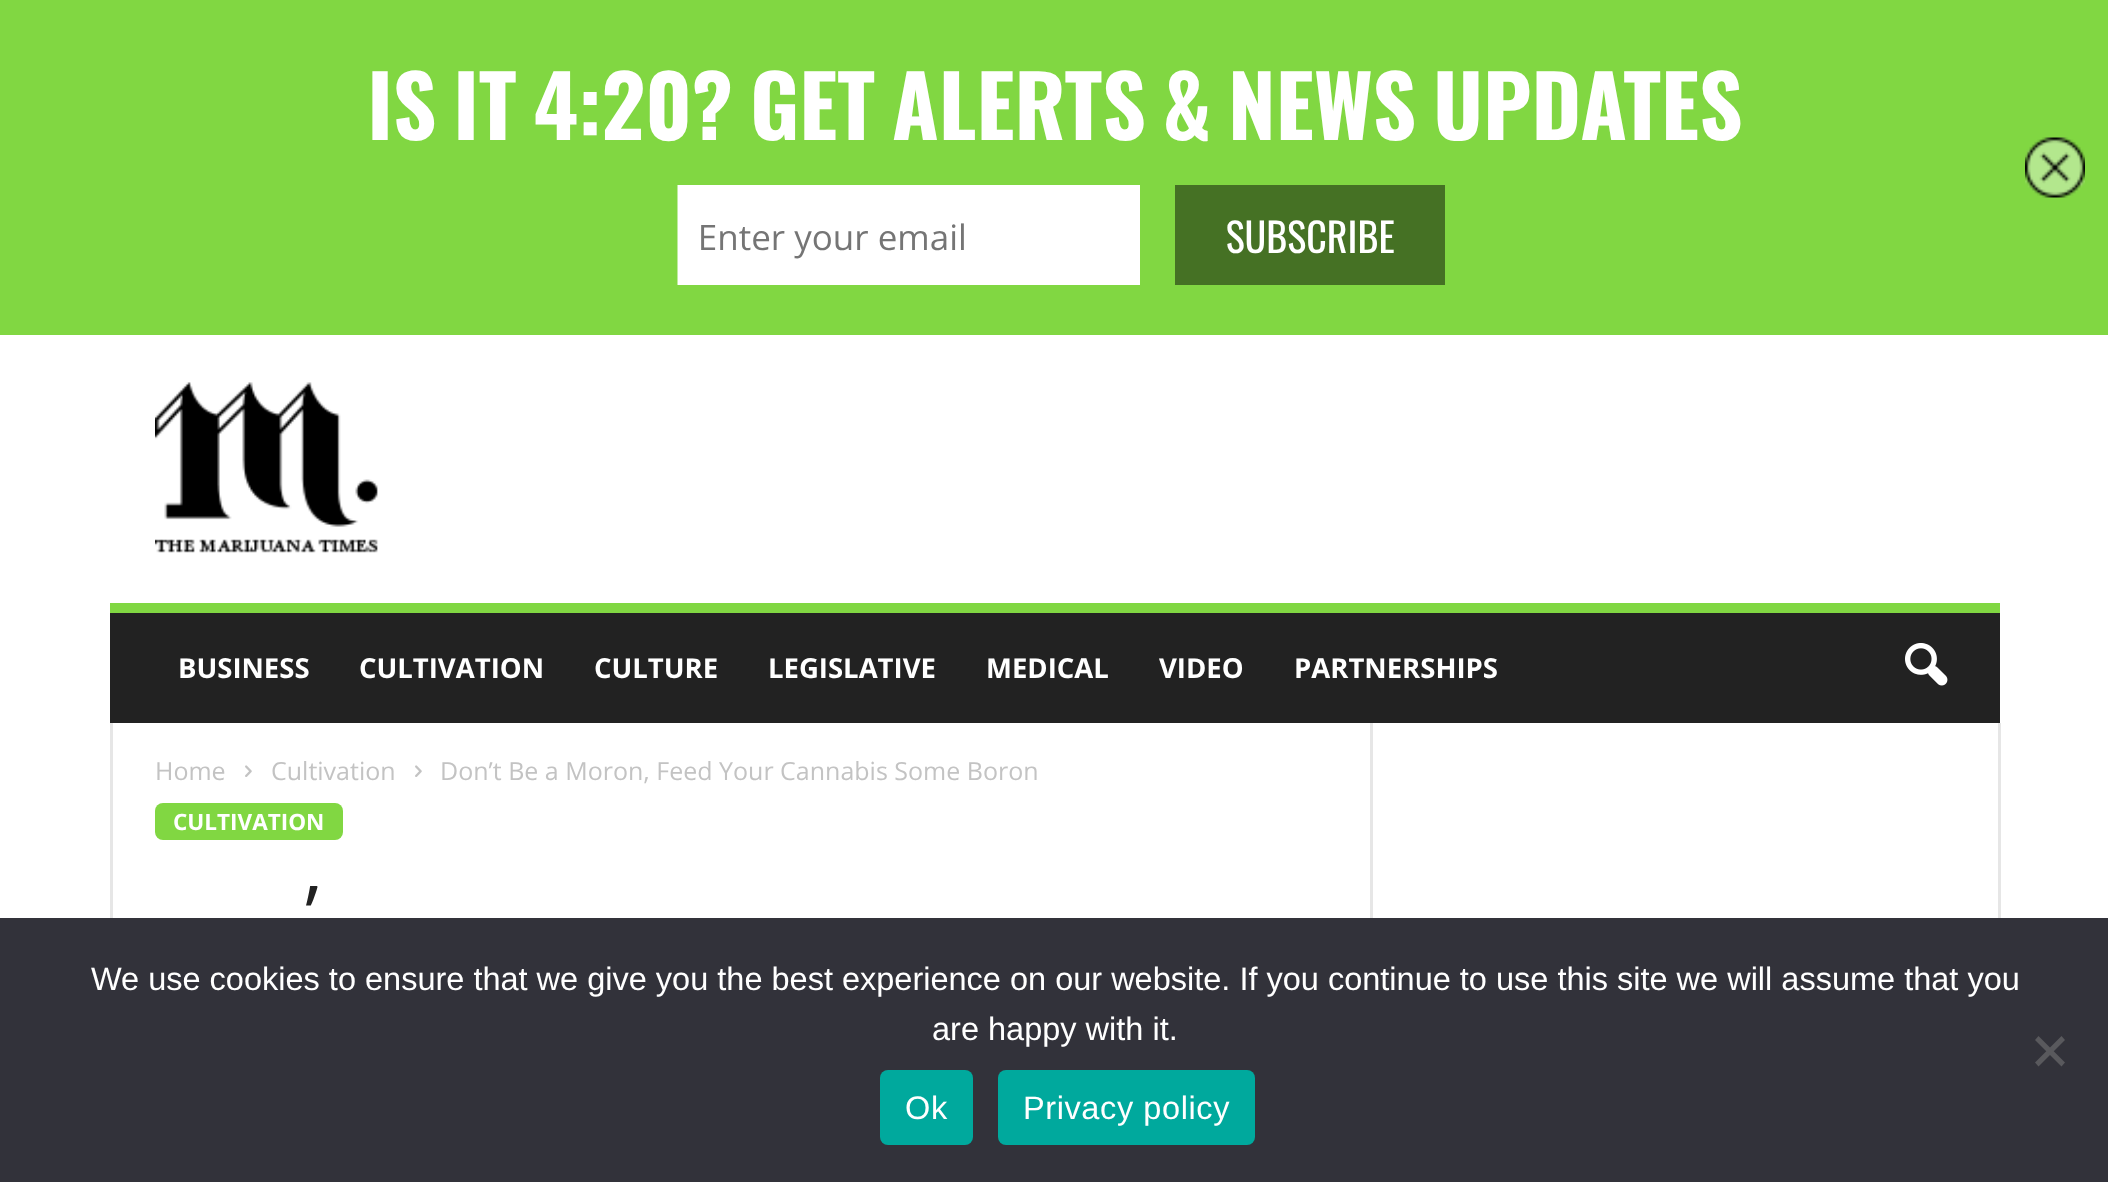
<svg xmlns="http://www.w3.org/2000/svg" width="2108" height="1182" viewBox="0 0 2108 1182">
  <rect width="100%" height="100%" fill="rgb(255,255,255)"/>
  <image x="0" y="0" width="2108" height="335" href="pic1.png"/>
  <image x="155" y="382" width="223" height="171" href="pic2.png"/>
  <rect x="110" y="613" width="1890" height="110" fill="rgb(34,34,34)"/>
  <rect x="110" y="603" width="1890" height="10" fill="rgb(129,215,66)"/>
  <g font-family="Open Sans" font-size="27.5" font-weight="bold" fill="rgb(255,255,255)">
    <text x="178" y="678">BUSINESS</text>
    <text x="359" y="678">CULTIVATION</text>
    <text x="594" y="678">CULTURE</text>
    <text x="768" y="678">LEGISLATIVE</text>
    <text x="986" y="678">MEDICAL</text>
    <text x="1159" y="678">VIDEO</text>
    <text x="1294" y="678">PARTNERSHIPS</text>
  </g>
  <image x="1905" y="643" width="43" height="43" href="pic3.png"/>
  <rect x="110" y="723" width="3" height="195" fill="rgb(230,230,230)"/>
  <text x="155" y="780" font-family="Open Sans" font-size="25" fill="rgb(195,195,195)">Home</text>
  <image x="245" y="765" width="7" height="12" href="pic4.png"/>
  <text x="271" y="780" font-family="Open Sans" font-size="25" fill="rgb(195,195,195)">Cultivation</text>
  <image x="415" y="765" width="7" height="12" href="pic4.png"/>
  <text x="440" y="780" font-family="Open Sans" font-size="25" fill="rgb(195,195,195)">Don’t Be a Moron, Feed Your Cannabis Some Boron</text>
  <rect x="155" y="803" width="188" height="37" rx="8" fill="rgb(129,215,66)"/>
  <text x="173" y="830" font-family="Open Sans" font-size="22.5" font-weight="bold" fill="rgb(255,255,255)">CULTIVATION</text>
  <text x="305" y="943" font-family="Open Sans" font-size="80" letter-spacing="-2" fill="rgb(34,34,34)">’</text>
  <rect x="1370" y="723" width="3" height="195" fill="rgb(230,230,230)"/>
  <rect x="1998" y="723" width="3" height="195" fill="rgb(230,230,230)"/>
  <rect x="0" y="918" width="2108" height="264" fill="rgb(50,50,58)"/>
  <g font-family="Liberation Sans" font-size="32.5" fill="rgb(255,255,255)">
    <text x="91" y="990">We use cookies to ensure that we give you the best experience on our website. If you continue to use this site we will assume that you</text>
    <text x="932" y="1040">are happy with it.</text>
  </g>
  <path d="M2061.5 1036L2065 1040L2038.5 1066.5L2035 1062.5Z" fill="rgb(89,89,93)"/>
  <path d="M2035 1040L2038.5 1036L2065 1062.5L2061.5 1066.5Z" fill="rgb(89,89,93)"/>
  <rect x="880" y="1070" width="93" height="75" rx="8" fill="rgb(0,169,157)"/>
  <text x="905" y="1119" font-family="Liberation Sans" font-size="32.5" letter-spacing="0.6" fill="rgb(255,255,255)">Ok</text>
  <rect x="998" y="1070" width="257" height="75" rx="8" fill="rgb(0,169,157)"/>
  <text x="1023" y="1119" font-family="Liberation Sans" font-size="32.5" letter-spacing="0.6" fill="rgb(255,255,255)">Privacy policy</text>
</svg>
